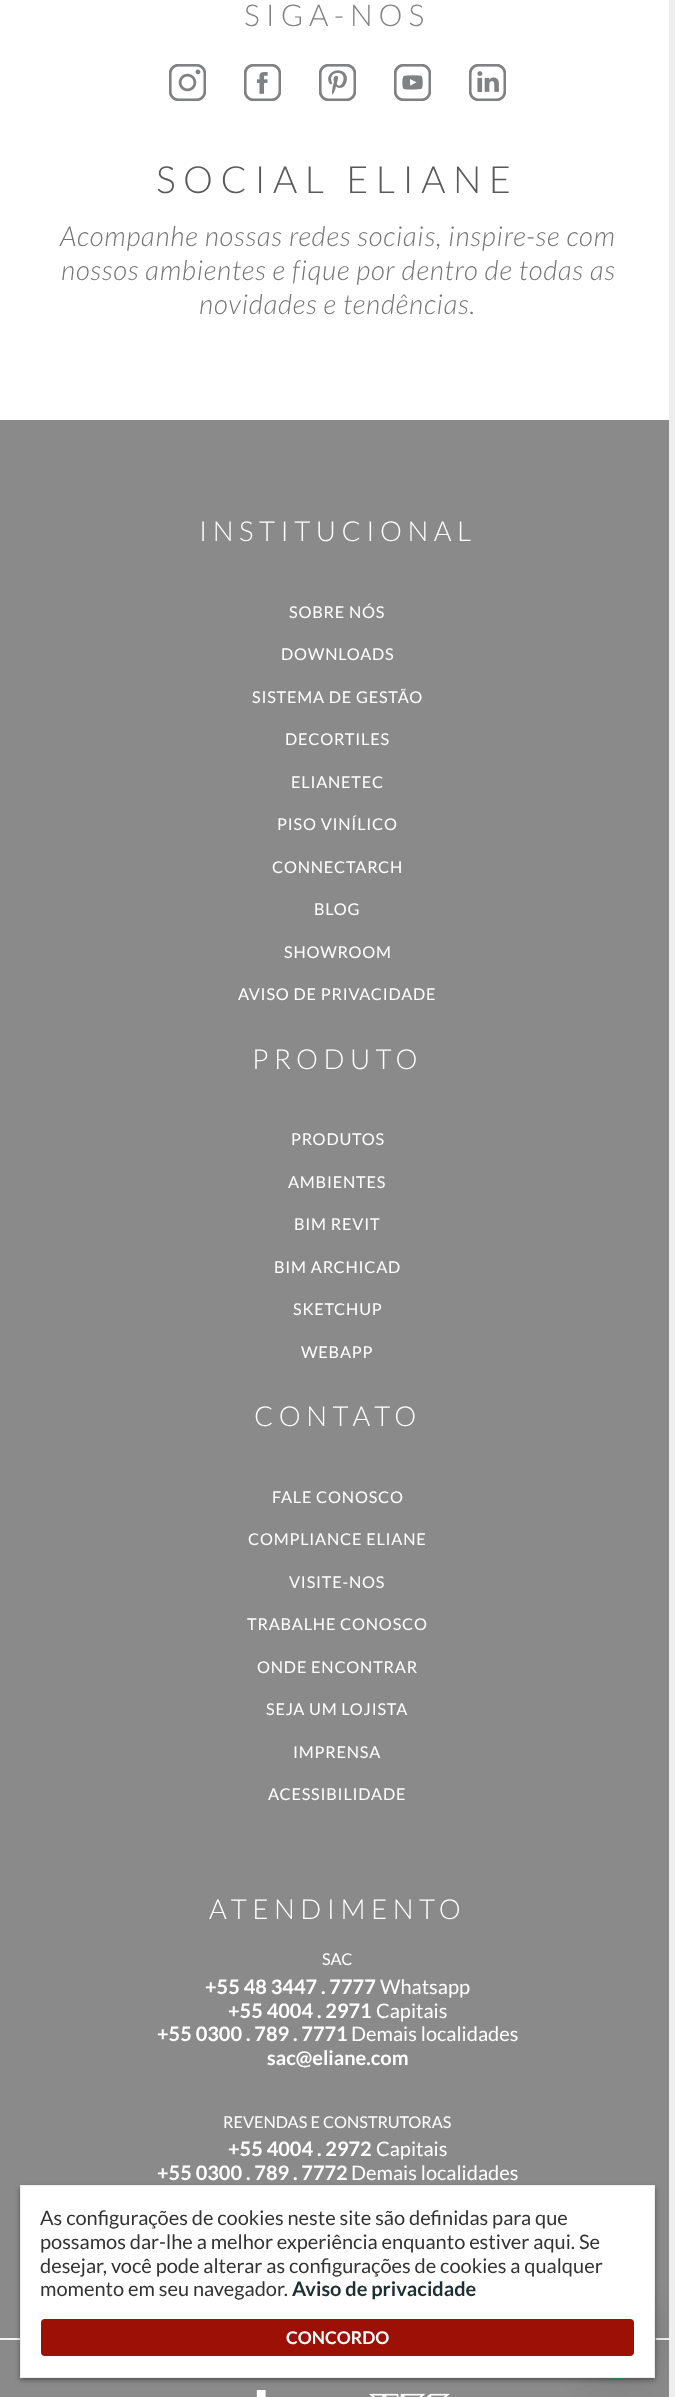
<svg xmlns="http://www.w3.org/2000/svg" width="675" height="2397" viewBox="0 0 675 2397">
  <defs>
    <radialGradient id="g1" gradientUnits="userSpaceOnUse" cx="619" cy="2341" r="53"><stop offset="0" stop-color="rgb(37,211,102)"/><stop offset="1" stop-color="rgb(30,180,86)"/></radialGradient>
  </defs>
  <rect width="100%" height="100%" fill="rgb(255,255,255)"/>
  <text x="244" y="26" font-family="Lato" font-size="30" font-weight="300" letter-spacing="6" fill="rgb(128,129,131)">SIGA-NOS</text>
  <image x="169" y="64" width="37" height="37" href="pic1.png"/>
  <image x="244" y="64" width="37" height="37" href="pic2.png"/>
  <image x="319" y="64" width="37" height="37" href="pic3.png"/>
  <image x="394" y="64" width="37" height="37" href="pic4.png"/>
  <image x="469" y="64" width="37" height="37" href="pic5.png"/>
  <text x="156" y="193" font-family="Lato" font-size="37.5" font-weight="300" letter-spacing="7.5" fill="rgb(88,89,91)">SOCIAL ELIANE</text>
  <g font-family="Lato" font-size="27.5" font-weight="300" font-style="italic" letter-spacing="0.85" fill="rgb(114,115,117)">
    <text x="60" y="246">Acompanhe nossas redes sociais, inspire-se com</text>
    <text x="61" y="280">nossos ambientes e fique por dentro de todas as</text>
    <text x="199" y="314">novidades e tendências.</text>
  </g>
  <rect x="0" y="420" width="669" height="1918" fill="rgb(138,138,138)"/>
  <rect x="0" y="2338" width="675" height="2" fill="rgb(244,244,244)"/>
  <text x="199" y="541" font-family="Lato" font-size="27.5" font-weight="300" letter-spacing="5.5" fill="rgb(255,255,255)">INSTITUCIONAL</text>
  <g font-family="Lato" font-size="16.25" letter-spacing="0.8" fill="rgb(255,255,255)">
    <text x="289" y="618">SOBRE NÓS</text>
    <text x="281" y="660">DOWNLOADS</text>
    <text x="252" y="703">SISTEMA DE GESTÃO</text>
    <text x="285" y="745">DECORTILES</text>
    <text x="291" y="788">ELIANETEC</text>
    <text x="277" y="830">PISO VINÍLICO</text>
    <text x="272" y="873">CONNECTARCH</text>
    <text x="314" y="915">BLOG</text>
    <text x="284" y="958">SHOWROOM</text>
    <text x="238" y="1000">AVISO DE PRIVACIDADE</text>
  </g>
  <text x="252" y="1069" font-family="Lato" font-size="27.5" font-weight="300" letter-spacing="5.5" fill="rgb(255,255,255)">PRODUTO</text>
  <g font-family="Lato" font-size="16.25" letter-spacing="0.8" fill="rgb(255,255,255)">
    <text x="291" y="1145">PRODUTOS</text>
    <text x="288" y="1188">AMBIENTES</text>
    <text x="294" y="1230">BIM REVIT</text>
    <text x="274" y="1273">BIM ARCHICAD</text>
    <text x="293" y="1315">SKETCHUP</text>
    <text x="301" y="1358">WEBAPP</text>
  </g>
  <text x="254" y="1426" font-family="Lato" font-size="27.5" font-weight="300" letter-spacing="5.5" fill="rgb(255,255,255)">CONTATO</text>
  <g font-family="Lato" font-size="16.25" letter-spacing="0.8" fill="rgb(255,255,255)">
    <text x="272" y="1503">FALE CONOSCO</text>
    <text x="248" y="1545">COMPLIANCE ELIANE</text>
    <text x="289" y="1588">VISITE-NOS</text>
    <text x="247" y="1630">TRABALHE CONOSCO</text>
    <text x="257" y="1673">ONDE ENCONTRAR</text>
    <text x="266" y="1715">SEJA UM LOJISTA</text>
    <text x="293" y="1758">IMPRENSA</text>
    <text x="268" y="1800">ACESSIBILIDADE</text>
  </g>
  <text x="209" y="1919" font-family="Lato" font-size="27.5" font-weight="300" letter-spacing="5.5" fill="rgb(255,255,255)">ATENDIMENTO</text>
  <text x="322" y="1965" font-family="Lato" font-size="16.25" fill="rgb(255,255,255)">SAC</text>
  <text x="205" y="1994" font-family="Lato" font-size="20" font-weight="bold" fill="rgb(255,255,255)">+55 48 3447 . 7777</text>
  <text x="380" y="1994" font-family="Lato" font-size="20" fill="rgb(255,255,255)">Whatsapp</text>
  <text x="228" y="2018" font-family="Lato" font-size="20" font-weight="bold" fill="rgb(255,255,255)">+55 4004 . 2971</text>
  <text x="376" y="2018" font-family="Lato" font-size="20" fill="rgb(255,255,255)">Capitais</text>
  <text x="157" y="2041" font-family="Lato" font-size="20" font-weight="bold" fill="rgb(255,255,255)">+55 0300 . 789 . 7771</text>
  <text x="351" y="2041" font-family="Lato" font-size="20" fill="rgb(255,255,255)">Demais localidades</text>
  <text x="267" y="2065" font-family="Lato" font-size="20" font-weight="bold" fill="rgb(255,255,255)">sac@eliane.com</text>
  <text x="223" y="2128" font-family="Lato" font-size="16.25" fill="rgb(255,255,255)">REVENDAS E CONSTRUTORAS</text>
  <text x="228" y="2156" font-family="Lato" font-size="20" font-weight="bold" fill="rgb(255,255,255)">+55 4004 . 2972</text>
  <text x="376" y="2156" font-family="Lato" font-size="20" fill="rgb(255,255,255)">Capitais</text>
  <text x="157" y="2180" font-family="Lato" font-size="20" font-weight="bold" fill="rgb(255,255,255)">+55 0300 . 789 . 7772</text>
  <text x="351" y="2180" font-family="Lato" font-size="20" fill="rgb(255,255,255)">Demais localidades</text>
  <rect x="0" y="2340" width="669" height="57" fill="rgb(138,138,138)"/>
  <image x="256" y="2390" width="194" height="7" href="pic6.png"/>
  <rect x="585" y="2308" width="68" height="67" rx="33.5" fill="rgba(0,0,0,0.2)" filter="blur(18px)"/>
  <rect x="669" y="0" width="6" height="2397" fill="rgb(238,238,238)"/>
  <circle cx="618.5" cy="2341.5" r="37.5" fill="url(#g1)"/>
  <rect x="20" y="2188" width="635" height="192" fill="rgba(0,0,0,0.4)" filter="blur(2.5px)"/>
  <rect x="20.5" y="2185.5" width="634" height="192" fill="rgb(255,255,255)" stroke="rgb(238,238,238)"/>
  <g font-family="Lato" font-size="20" fill="rgb(51,51,51)">
    <text>
      <tspan x="40" y="2225">As configurações de cookies neste site são definidas para que</tspan>
      <tspan x="40" y="2249">possamos dar-lhe a melhor experiência enquanto estiver aqui. Se</tspan>
      <tspan x="40" y="2273">desejar, você pode alterar as configurações de cookies a qualquer</tspan>
      <tspan x="40" y="2296">momento em seu navegador.</tspan>
    </text>
  </g>
  <text x="292" y="2296" font-family="Lato" font-size="20" font-weight="bold" fill="rgb(28,47,51)">Aviso de privacidade</text>
  <rect x="41" y="2319" width="593" height="37" rx="4" fill="rgb(156,16,6)"/>
  <text x="286" y="2344" font-family="Lato" font-size="17.5" font-weight="bold" fill="rgb(255,255,255)">CONCORDO</text>
</svg>
